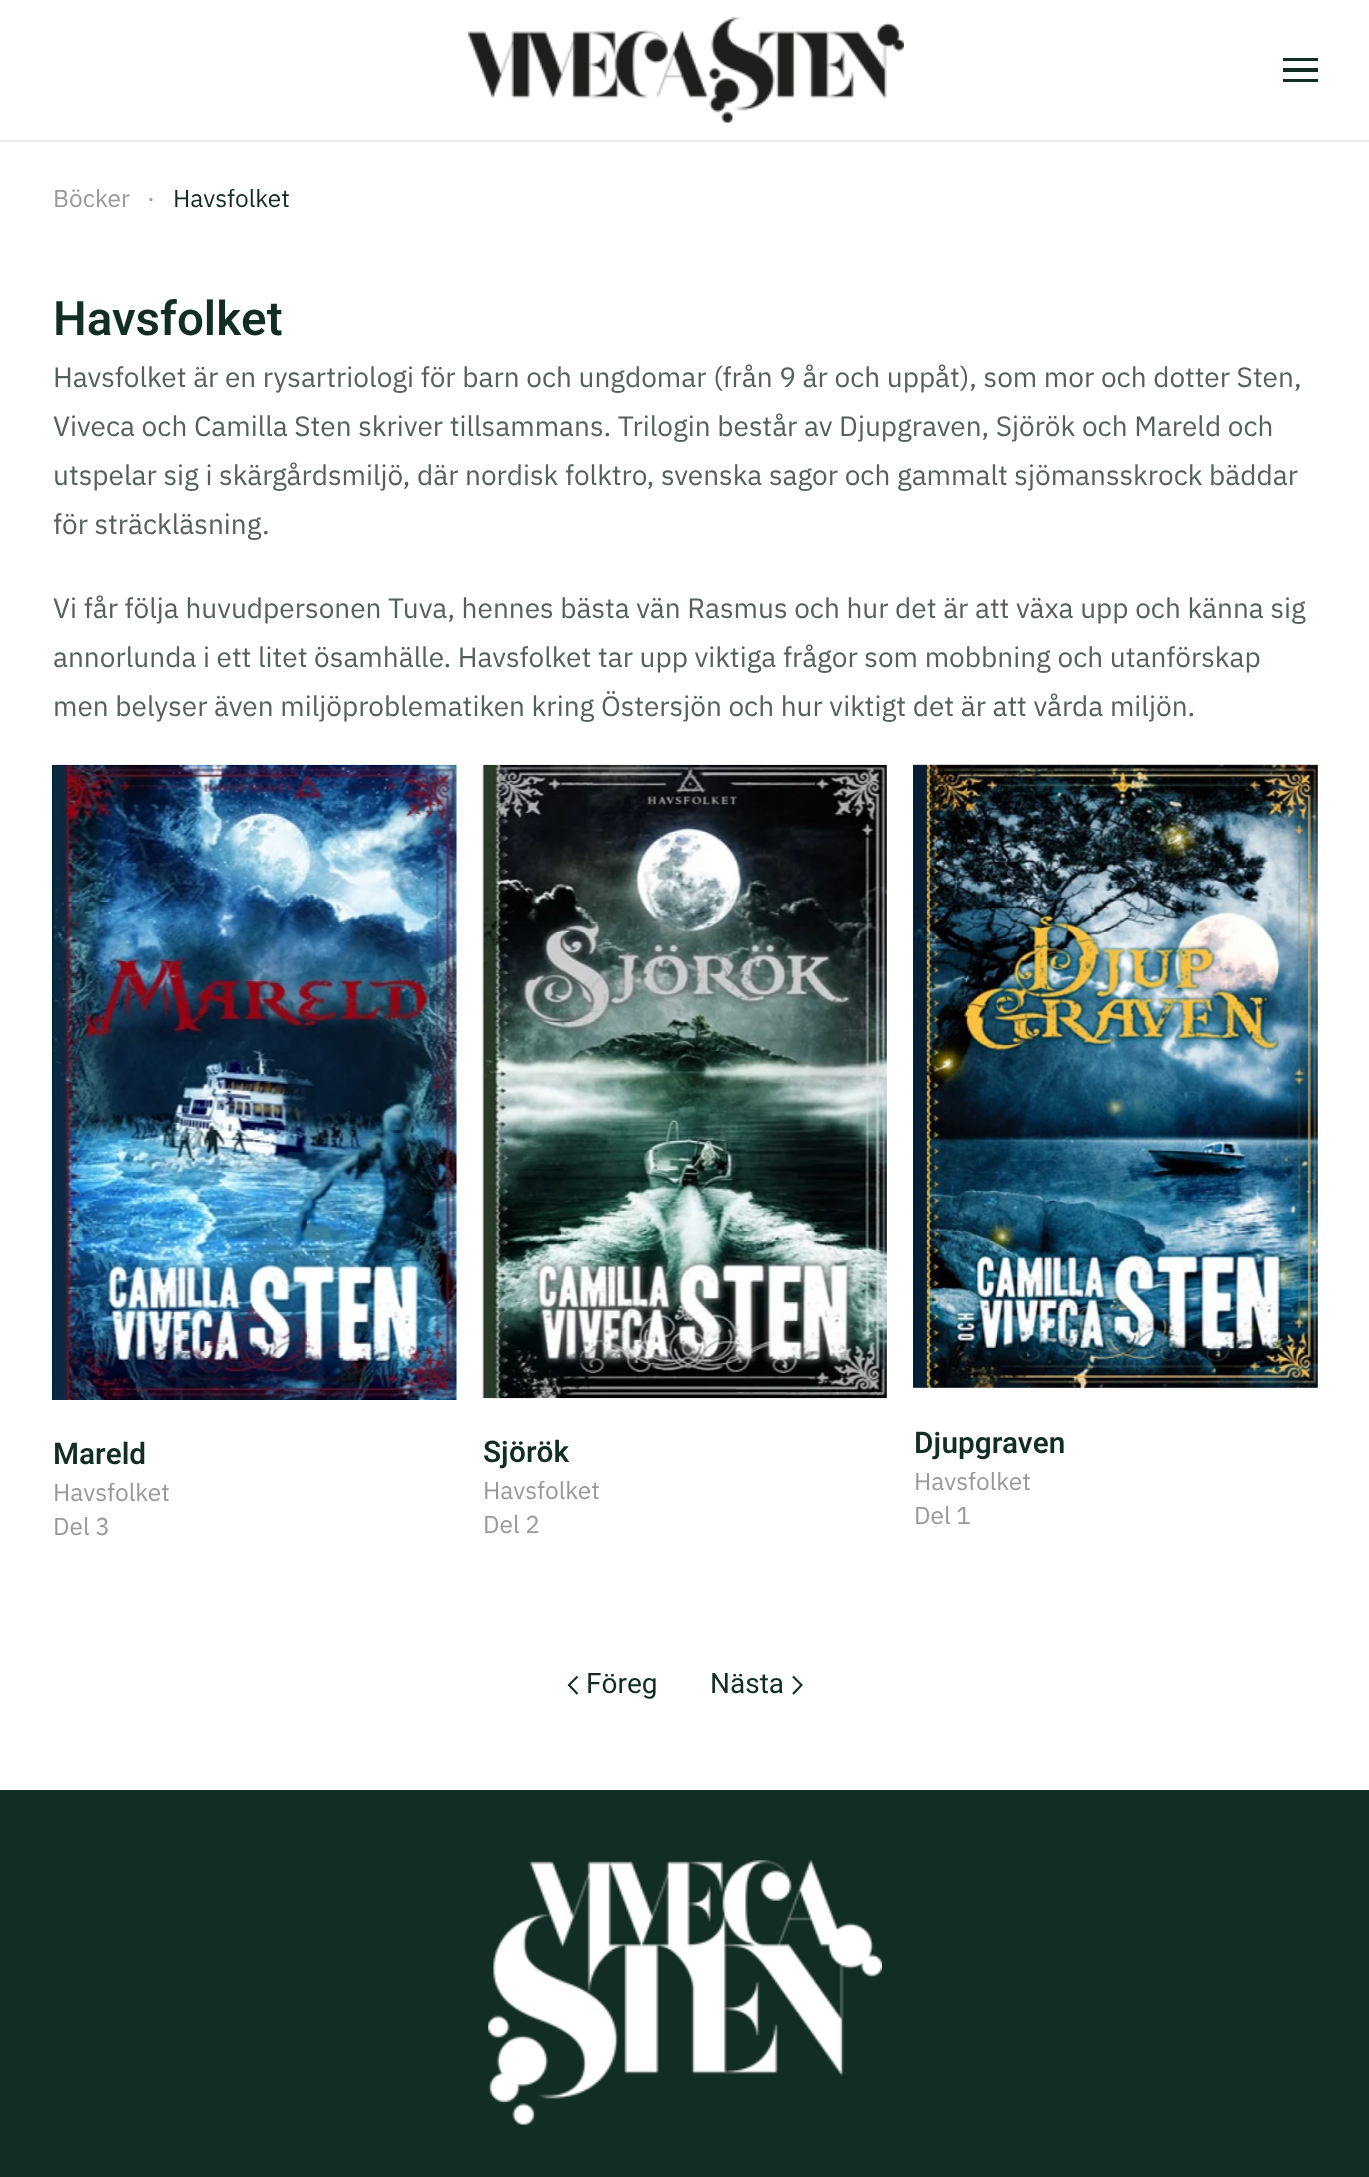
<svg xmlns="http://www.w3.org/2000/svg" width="1369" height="2177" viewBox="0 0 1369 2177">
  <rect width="100%" height="100%" fill="rgb(255,255,255)"/>
  <rect x="0" y="140" width="1369" height="2" fill="rgb(232,232,232)"/>
  <image x="468" y="17" width="436" height="106" href="pic1.png"/>
  <rect x="1283" y="58" width="35" height="3" fill="rgb(18,45,37)"/>
  <rect x="1283" y="68" width="35" height="4" fill="rgb(18,45,37)"/>
  <rect x="1283" y="79" width="35" height="3" fill="rgb(18,45,37)"/>
  <g font-family="IBM Plex Sans" font-size="24.5" fill="rgb(153,153,153)">
    <text x="53" y="207">Böcker</text>
    <text x="147" y="207">·</text>
  </g>
  <text x="173" y="207" font-family="IBM Plex Sans" font-size="24.5" fill="rgb(18,45,37)">Havsfolket</text>
  <text x="53" y="335" font-family="Heebo" font-size="47.5" font-weight="600" fill="rgb(18,45,37)">Havsfolket</text>
  <g font-family="IBM Plex Sans" font-size="28" fill="rgb(86,95,92)">
    <text>
      <tspan x="53" y="387">Havsfolket är en rysartriologi för barn och ungdomar (från 9 år och uppåt), som mor och dotter Sten,</tspan>
      <tspan x="53" y="436">Viveca och Camilla Sten skriver tillsammans. Trilogin består av Djupgraven, Sjörök och Mareld och</tspan>
      <tspan x="53" y="485">utspelar sig i skärgårdsmiljö, där nordisk folktro, svenska sagor och gammalt sjömansskrock bäddar</tspan>
      <tspan x="53" y="534">för sträckläsning.</tspan>
    </text>
    <text>
      <tspan x="53" y="618">Vi får följa huvudpersonen Tuva, hennes bästa vän Rasmus och hur det är att växa upp och känna sig</tspan>
      <tspan x="53" y="667">annorlunda i ett litet ösamhälle. Havsfolket tar upp viktiga frågor som mobbning och utanförskap</tspan>
      <tspan x="53" y="716">men belyser även miljöproblematiken kring Östersjön och hur viktigt det är att vårda miljön.</tspan>
    </text>
  </g>
  <image x="52" y="764" width="406" height="636" href="pic2.png"/>
  <text x="53" y="1464" font-family="Heebo" font-size="29.75" font-weight="600" fill="rgb(18,45,37)">Mareld</text>
  <g font-family="IBM Plex Sans" font-size="24.5" fill="rgb(153,153,153)">
    <text>
      <tspan x="53" y="1501">Havsfolket</tspan>
      <tspan x="53" y="1535">Del 3</tspan>
    </text>
  </g>
  <image x="482" y="764" width="405" height="635" href="pic3.png"/>
  <text x="483" y="1462" font-family="Heebo" font-size="29.75" font-weight="600" fill="rgb(18,45,37)">Sjörök</text>
  <g font-family="IBM Plex Sans" font-size="24.5" fill="rgb(153,153,153)">
    <text>
      <tspan x="483" y="1499">Havsfolket</tspan>
      <tspan x="483" y="1533">Del 2</tspan>
    </text>
  </g>
  <image x="913" y="764" width="405" height="624" href="pic4.png"/>
  <text x="914" y="1453" font-family="Heebo" font-size="29.75" font-weight="600" fill="rgb(18,45,37)">Djupgraven</text>
  <g font-family="IBM Plex Sans" font-size="24.5" fill="rgb(153,153,153)">
    <text>
      <tspan x="914" y="1490">Havsfolket</tspan>
      <tspan x="914" y="1524">Del 1</tspan>
    </text>
  </g>
  <path d="M577.5 1676.5L569 1685L577.5 1694" fill="none" stroke="rgb(18,45,37)" stroke-width="2.1"/>
  <g font-family="Heebo" font-size="28" fill="rgb(18,45,37)">
    <text x="586" y="1693">Föreg</text>
    <text x="710" y="1693">Nästa</text>
  </g>
  <path d="M793 1676.5L801.5 1685L793 1694" fill="none" stroke="rgb(18,45,37)" stroke-width="2.1"/>
  <rect x="0" y="1790" width="1369" height="387" fill="rgb(18,45,37)"/>
  <image x="488" y="1860" width="394" height="265" href="pic5.png"/>
</svg>
